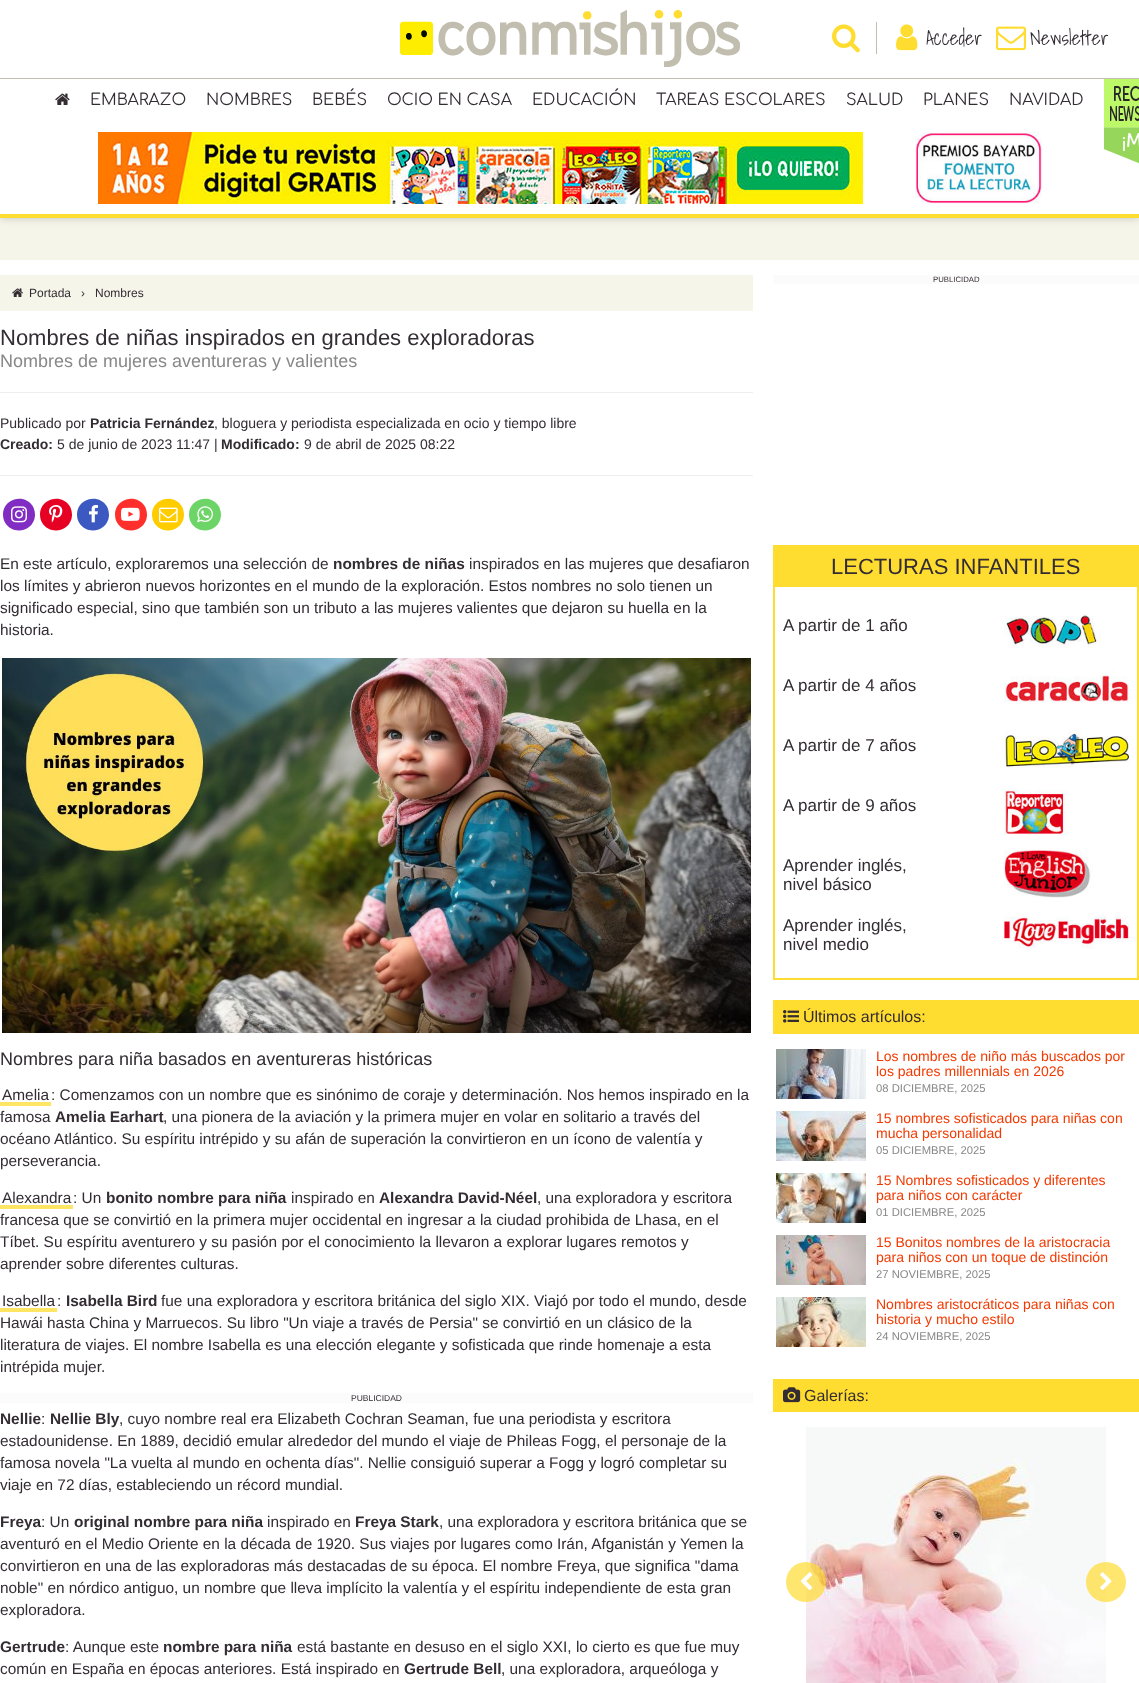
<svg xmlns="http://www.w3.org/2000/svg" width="1139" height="1683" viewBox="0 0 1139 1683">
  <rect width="100%" height="100%" fill="rgb(246,245,234)"/>
  <rect x="0" y="0" width="1139" height="218" fill="rgba(0,0,0,0.2)" filter="blur(4px)"/>
  <rect x="0" y="0" width="1139" height="214" fill="rgb(255,255,255)"/>
  <rect x="0" y="214" width="1139" height="4" fill="rgb(255,220,48)"/>
  <image x="400" y="10" width="340" height="57" href="pic1.png"/>
  <rect x="876" y="22" width="1" height="32" fill="rgb(193,190,175)"/>
  <image x="832" y="24" width="28" height="29" href="pic2.png"/>
  <image x="896" y="24" width="22" height="27" href="pic3.png"/>
  <text x="926" y="45" font-family="Shadows Into Light" font-size="20" font-weight="300" fill="rgb(51,44,51)">Acceder</text>
  <image x="996" y="26" width="30" height="25" href="pic4.png"/>
  <text x="1030" y="45" font-family="Shadows Into Light" font-size="20" font-weight="300" fill="rgb(51,44,51)">Newsletter</text>
  <rect x="0" y="78" width="1139" height="1" fill="rgb(193,190,175)"/>
  <image x="55" y="93" width="15" height="12" href="pic5.png"/>
  <g font-family="Comfortaa" font-size="16" fill="rgb(51,44,51)">
    <text x="90" y="105">EMBARAZO</text>
    <text x="206" y="105">NOMBRES</text>
    <text x="312" y="105">BEBÉS</text>
    <text x="387" y="105">OCIO EN CASA</text>
    <text x="532" y="105">EDUCACIÓN</text>
    <text x="656" y="105">TAREAS ESCOLARES</text>
    <text x="846" y="105">SALUD</text>
    <text x="923" y="105">PLANES</text>
    <text x="1009" y="105">NAVIDAD</text>
  </g>
  <image x="1104" y="79" width="35" height="85" href="pic6.png"/>
  <image x="98" y="132" width="765" height="72" href="pic7.png"/>
  <image x="915" y="132" width="127" height="72" href="pic8.png"/>
  <rect x="0" y="260" width="1139" height="1423" fill="rgb(255,255,255)"/>
  <rect x="0" y="275" width="753" height="36" fill="rgb(246,245,234)"/>
  <image x="12" y="288" width="11" height="9" href="pic9.png"/>
  <g font-family="Liberation Sans" font-size="12" fill="rgb(51,44,51)">
    <text x="29" y="297">Portada</text>
    <text x="81" y="297">›</text>
    <text x="95" y="297">Nombres</text>
  </g>
  <text x="0" y="345" font-family="Liberation Sans" font-size="22" fill="rgb(51,44,51)">Nombres de niñas inspirados en grandes exploradoras</text>
  <text x="0" y="367" font-family="Liberation Sans" font-size="18" fill="rgb(136,136,136)">Nombres de mujeres aventureras y valientes</text>
  <rect x="0" y="392" width="753" height="1" fill="rgb(238,238,238)"/>
  <text x="0" y="428" font-family="Liberation Sans" font-size="14" fill="rgb(51,44,51)">Publicado por</text>
  <text x="90" y="428" font-family="Liberation Sans" font-size="14" font-weight="bold" fill="rgb(51,44,51)">Patricia Fernández</text>
  <text x="214" y="428" font-family="Liberation Sans" font-size="14" fill="rgb(51,44,51)">, bloguera y periodista especializada en ocio y tiempo libre</text>
  <text x="0" y="449" font-family="Liberation Sans" font-size="14" font-weight="bold" fill="rgb(51,44,51)">Creado:</text>
  <text x="57" y="449" font-family="Liberation Sans" font-size="14" fill="rgb(51,44,51)">5 de junio de 2023 11:47 |</text>
  <text x="221" y="449" font-family="Liberation Sans" font-size="14" font-weight="bold" fill="rgb(51,44,51)">Modificado:</text>
  <text x="304" y="449" font-family="Liberation Sans" font-size="14" fill="rgb(51,44,51)">9 de abril de 2025 08:22</text>
  <rect x="0" y="475" width="753" height="1" fill="rgb(238,238,238)"/>
  <path d="M33 506.5C34.5 509.5 35 512.5 35 515.5C34 531.5 13 536 5 522.5C3.5 520 3 517 3 513.5C4 498 25 493 33 506.5Z" fill="rgb(129,44,194)"/>
  <image x="11" y="506" width="16" height="17" href="pic10.png"/>
  <path d="M70 506.5C71.5 509.5 72 512.5 72 515.5C71 531.5 50 536 42 522.5C40.5 520 40 517 40 513.5C41 498 62 493 70 506.5Z" fill="rgb(230,0,35)"/>
  <image x="49" y="505" width="14" height="18" href="pic11.png"/>
  <path d="M107 506.5C108.5 509.5 109 512.5 109 515.5C108 531.5 87 536 79 522.5C77.5 520 77 517 77 513.5C78 498 99 493 107 506.5Z" fill="rgb(59,89,192)"/>
  <image x="89" y="505" width="9" height="18" href="pic12.png"/>
  <path d="M145 506.5C146.5 509.5 147 512.5 147 515.5C146 531.5 125 536 117 522.5C115.5 520 115 517 115 513.5C116 498 137 493 145 506.5Z" fill="rgb(255,48,43)"/>
  <image x="121" y="507" width="19" height="14" href="pic13.png"/>
  <path d="M182 506.5C183.5 509.5 184 512.5 184 515.5C183 531.5 162 536 154 522.5C152.5 520 152 517 152 513.5C153 498 174 493 182 506.5Z" fill="rgb(255,204,0)"/>
  <image x="159" y="507" width="19" height="16" href="pic14.png"/>
  <path d="M219 506.5C220.5 509.5 221 512.5 221 515.5C220 531.5 199 536 191 522.5C189.5 520 189 517 189 513.5C190 498 211 493 219 506.5Z" fill="rgb(109,213,103)"/>
  <image x="197" y="506" width="16" height="17" href="pic15.png"/>
  <text x="0" y="569" font-family="Liberation Sans" font-size="15.4" fill="rgb(51,44,51)">En este artículo, exploraremos una selección de</text>
  <text x="333" y="569" font-family="Liberation Sans" font-size="15.4" font-weight="bold" fill="rgb(51,44,51)">nombres de niñas</text>
  <g font-family="Liberation Sans" font-size="15.4" fill="rgb(51,44,51)">
    <text x="469" y="569">inspirados en las mujeres que desafiaron</text>
    <text>
      <tspan x="0" y="591">los límites y abrieron nuevos horizontes en el mundo de la exploración. Estos nombres no solo tienen un</tspan>
      <tspan x="0" y="613">significado especial, sino que también son un tributo a las mujeres valientes que dejaron su huella en la</tspan>
      <tspan x="0" y="635">historia.</tspan>
    </text>
  </g>
  <image x="2" y="658" width="749" height="375" href="pic16.png"/>
  <text x="0" y="1065" font-family="Liberation Sans" font-size="18" fill="rgb(51,44,51)">Nombres para niña basados en aventureras históricas</text>
  <text x="2" y="1100" font-family="Liberation Sans" font-size="15.4" fill="rgb(51,44,51)">Amelia</text>
  <rect x="0" y="1102" width="51" height="4" fill="rgb(255,229,100)"/>
  <g font-family="Liberation Sans" font-size="15.4" fill="rgb(51,44,51)">
    <text x="51" y="1100">: Comenzamos con un nombre que es sinónimo de coraje y determinación. Nos hemos inspirado en la</text>
    <text x="0" y="1122">famosa</text>
  </g>
  <text x="55" y="1122" font-family="Liberation Sans" font-size="15.4" font-weight="bold" fill="rgb(51,44,51)">Amelia Earhart</text>
  <g font-family="Liberation Sans" font-size="15.4" fill="rgb(51,44,51)">
    <text x="163" y="1122">, una pionera de la aviación y la primera mujer en volar en solitario a través del</text>
    <text>
      <tspan x="0" y="1144">océano Atlántico. Su espíritu intrépido y su afán de superación la convirtieron en un ícono de valentía y</tspan>
      <tspan x="0" y="1166">perseverancia.</tspan>
    </text>
    <text x="2" y="1203">Alexandra</text>
  </g>
  <rect x="0" y="1205" width="73" height="4" fill="rgb(255,229,100)"/>
  <text x="73" y="1203" font-family="Liberation Sans" font-size="15.4" fill="rgb(51,44,51)">: Un</text>
  <text x="106" y="1203" font-family="Liberation Sans" font-size="15.4" font-weight="bold" fill="rgb(51,44,51)">bonito nombre para niña</text>
  <text x="291" y="1203" font-family="Liberation Sans" font-size="15.4" fill="rgb(51,44,51)">inspirado en</text>
  <text x="379" y="1203" font-family="Liberation Sans" font-size="15.4" font-weight="bold" fill="rgb(51,44,51)">Alexandra David-Néel</text>
  <g font-family="Liberation Sans" font-size="15.4" fill="rgb(51,44,51)">
    <text x="537" y="1203">, una exploradora y escritora</text>
    <text>
      <tspan x="0" y="1225">francesa que se convirtió en la primera mujer occidental en ingresar a la ciudad prohibida de Lhasa, en el</tspan>
      <tspan x="0" y="1247">Tíbet. Su espíritu aventurero y su pasión por el conocimiento la llevaron a explorar lugares remotos y</tspan>
      <tspan x="0" y="1269">aprender sobre diferentes culturas.</tspan>
    </text>
    <text x="2" y="1306">Isabella</text>
  </g>
  <rect x="0" y="1308" width="57" height="4" fill="rgb(255,229,100)"/>
  <text x="57" y="1306" font-family="Liberation Sans" font-size="15.4" fill="rgb(51,44,51)">:</text>
  <text x="66" y="1306" font-family="Liberation Sans" font-size="15.4" font-weight="bold" fill="rgb(51,44,51)">Isabella Bird</text>
  <g font-family="Liberation Sans" font-size="15.4" fill="rgb(51,44,51)">
    <text x="161" y="1306">fue una exploradora y escritora británica del siglo XIX. Viajó por todo el mundo, desde</text>
    <text>
      <tspan x="0" y="1328">Hawái hasta China y Marruecos. Su libro "Un viaje a través de Persia" se convirtió en un clásico de la</tspan>
      <tspan x="0" y="1350">literatura de viajes. El nombre Isabella es una elección elegante y sofisticada que rinde homenaje a esta</tspan>
      <tspan x="0" y="1372">intrépida mujer.</tspan>
    </text>
  </g>
  <rect x="0" y="1393" width="753" height="10" fill="rgb(251,251,251)"/>
  <text x="351" y="1401" font-family="Liberation Sans" font-size="8.5" fill="rgb(51,44,51)">PUBLICIDAD</text>
  <text x="0" y="1424" font-family="Liberation Sans" font-size="15.4" font-weight="bold" fill="rgb(51,44,51)">Nellie</text>
  <text x="41" y="1424" font-family="Liberation Sans" font-size="15.4" fill="rgb(51,44,51)">:</text>
  <text x="50" y="1424" font-family="Liberation Sans" font-size="15.4" font-weight="bold" fill="rgb(51,44,51)">Nellie Bly</text>
  <g font-family="Liberation Sans" font-size="15.4" fill="rgb(51,44,51)">
    <text x="119" y="1424">, cuyo nombre real era Elizabeth Cochran Seaman, fue una periodista y escritora</text>
    <text>
      <tspan x="0" y="1446">estadounidense. En 1889, decidió emular alrededor del mundo el viaje de Phileas Fogg, el personaje de la</tspan>
      <tspan x="0" y="1468">famosa novela "La vuelta al mundo en ochenta días". Nellie consiguió superar a Fogg y logró completar su</tspan>
      <tspan x="0" y="1490">viaje en 72 días, estableciendo un récord mundial.</tspan>
    </text>
  </g>
  <text x="0" y="1527" font-family="Liberation Sans" font-size="15.4" font-weight="bold" fill="rgb(51,44,51)">Freya</text>
  <text x="41" y="1527" font-family="Liberation Sans" font-size="15.4" fill="rgb(51,44,51)">: Un</text>
  <text x="74" y="1527" font-family="Liberation Sans" font-size="15.4" font-weight="bold" fill="rgb(51,44,51)">original nombre para niña</text>
  <text x="267" y="1527" font-family="Liberation Sans" font-size="15.4" fill="rgb(51,44,51)">inspirado en</text>
  <text x="355" y="1527" font-family="Liberation Sans" font-size="15.4" font-weight="bold" fill="rgb(51,44,51)">Freya Stark</text>
  <g font-family="Liberation Sans" font-size="15.4" fill="rgb(51,44,51)">
    <text x="439" y="1527">, una exploradora y escritora británica que se</text>
    <text>
      <tspan x="0" y="1549">aventuró en el Medio Oriente en la década de 1920. Sus viajes por lugares como Irán, Afganistán y Yemen la</tspan>
      <tspan x="0" y="1571">convirtieron en una de las exploradoras más destacadas de su época. El nombre Freya, que significa "dama</tspan>
      <tspan x="0" y="1593">noble" en nórdico antiguo, un nombre que lleva implícito la valentía y el espíritu independiente de esta gran</tspan>
      <tspan x="0" y="1615">exploradora.</tspan>
    </text>
  </g>
  <text x="0" y="1652" font-family="Liberation Sans" font-size="15.4" font-weight="bold" fill="rgb(51,44,51)">Gertrude</text>
  <text x="65" y="1652" font-family="Liberation Sans" font-size="15.4" fill="rgb(51,44,51)">: Aunque este</text>
  <text x="163" y="1652" font-family="Liberation Sans" font-size="15.4" font-weight="bold" fill="rgb(51,44,51)">nombre para niña</text>
  <g font-family="Liberation Sans" font-size="15.4" fill="rgb(51,44,51)">
    <text x="297" y="1652">está bastante en desuso en el siglo XXI, lo cierto es que fue muy</text>
    <text x="0" y="1674">común en España en épocas anteriores. Está inspirado en</text>
  </g>
  <text x="404" y="1674" font-family="Liberation Sans" font-size="15.4" font-weight="bold" fill="rgb(51,44,51)">Gertrude Bell</text>
  <text x="501" y="1674" font-family="Liberation Sans" font-size="15.4" fill="rgb(51,44,51)">, una exploradora, arqueóloga y</text>
  <rect x="773" y="275" width="366" height="9" fill="rgb(251,251,251)"/>
  <text x="933" y="282" font-family="Liberation Sans" font-size="7.75" fill="rgb(51,44,51)">PUBLICIDAD</text>
  <rect x="774" y="546" width="364" height="433" fill="none" stroke="rgb(255,220,48)" stroke-width="2"/>
  <rect x="775" y="547" width="362" height="40" fill="rgb(255,220,48)"/>
  <text x="831" y="574" font-family="Liberation Sans" font-size="22" fill="rgb(51,44,51)">LECTURAS INFANTILES</text>
  <text x="783" y="631" font-family="Liberation Sans" font-size="17" fill="rgb(51,44,51)">A partir de 1 año</text>
  <image x="1004" y="614" width="97" height="35" href="pic17.png"/>
  <text x="783" y="691" font-family="Liberation Sans" font-size="17" fill="rgb(51,44,51)">A partir de 4 años</text>
  <image x="1004" y="670" width="125" height="32" href="pic18.png"/>
  <text x="783" y="751" font-family="Liberation Sans" font-size="17" fill="rgb(51,44,51)">A partir de 7 años</text>
  <image x="1004" y="730" width="125" height="39" href="pic19.png"/>
  <text x="783" y="811" font-family="Liberation Sans" font-size="17" fill="rgb(51,44,51)">A partir de 9 años</text>
  <image x="1004" y="790" width="65" height="45" href="pic20.png"/>
  <g font-family="Liberation Sans" font-size="17" fill="rgb(51,44,51)">
    <text>
      <tspan x="783" y="871">Aprender inglés,</tspan>
      <tspan x="783" y="890">nivel básico</tspan>
    </text>
  </g>
  <image x="1004" y="850" width="89" height="48" href="pic21.png"/>
  <g font-family="Liberation Sans" font-size="17" fill="rgb(51,44,51)">
    <text>
      <tspan x="783" y="931">Aprender inglés,</tspan>
      <tspan x="783" y="950">nivel medio</tspan>
    </text>
  </g>
  <image x="1004" y="916" width="125" height="33" href="pic22.png"/>
  <rect x="773" y="1000" width="366" height="34" fill="rgb(255,220,48)"/>
  <image x="783" y="1010" width="16" height="13" href="pic23.png"/>
  <text x="803" y="1022" font-family="Liberation Sans" font-size="16" fill="rgb(51,44,51)">Últimos artículos:</text>
  <image x="776" y="1049" width="90" height="50" href="pic24.png"/>
  <g font-family="Liberation Sans" font-size="14" fill="rgb(242,57,0)">
    <text>
      <tspan x="876" y="1061">Los nombres de niño más buscados por</tspan>
      <tspan x="876" y="1076">los padres millennials en 2026</tspan>
    </text>
  </g>
  <text x="876" y="1092" font-family="Liberation Sans" font-size="11.25" fill="rgb(136,136,136)">08 DICIEMBRE, 2025</text>
  <image x="776" y="1111" width="90" height="50" href="pic25.png"/>
  <g font-family="Liberation Sans" font-size="14" fill="rgb(242,57,0)">
    <text>
      <tspan x="876" y="1123">15 nombres sofisticados para niñas con</tspan>
      <tspan x="876" y="1138">mucha personalidad</tspan>
    </text>
  </g>
  <text x="876" y="1154" font-family="Liberation Sans" font-size="11.25" fill="rgb(136,136,136)">05 DICIEMBRE, 2025</text>
  <image x="776" y="1173" width="90" height="50" href="pic26.png"/>
  <g font-family="Liberation Sans" font-size="14" fill="rgb(242,57,0)">
    <text>
      <tspan x="876" y="1185">15 Nombres sofisticados y diferentes</tspan>
      <tspan x="876" y="1200">para niños con carácter</tspan>
    </text>
  </g>
  <text x="876" y="1216" font-family="Liberation Sans" font-size="11.25" fill="rgb(136,136,136)">01 DICIEMBRE, 2025</text>
  <image x="776" y="1235" width="90" height="50" href="pic27.png"/>
  <g font-family="Liberation Sans" font-size="14" fill="rgb(242,57,0)">
    <text>
      <tspan x="876" y="1247">15 Bonitos nombres de la aristocracia</tspan>
      <tspan x="876" y="1262">para niños con un toque de distinción</tspan>
    </text>
  </g>
  <text x="876" y="1278" font-family="Liberation Sans" font-size="11.25" fill="rgb(136,136,136)">27 NOVIEMBRE, 2025</text>
  <image x="776" y="1297" width="90" height="50" href="pic28.png"/>
  <g font-family="Liberation Sans" font-size="14" fill="rgb(242,57,0)">
    <text>
      <tspan x="876" y="1309">Nombres aristocráticos para niñas con</tspan>
      <tspan x="876" y="1324">historia y mucho estilo</tspan>
    </text>
  </g>
  <text x="876" y="1340" font-family="Liberation Sans" font-size="11.25" fill="rgb(136,136,136)">24 NOVIEMBRE, 2025</text>
  <rect x="773" y="1379" width="366" height="33" fill="rgb(255,220,48)"/>
  <image x="783" y="1387" width="18" height="16" href="pic29.png"/>
  <text x="804" y="1401" font-family="Liberation Sans" font-size="16" fill="rgb(51,44,51)">Galerías:</text>
  <image x="806" y="1427" width="300" height="256" href="pic30.png"/>
  <circle cx="806" cy="1582" r="20" fill="rgba(255,220,48,0.7)"/>
  <image x="800" y="1572" width="13" height="19" href="pic31.png"/>
  <circle cx="1106" cy="1582" r="20" fill="rgba(255,220,48,0.7)"/>
  <image x="1100" y="1572" width="12" height="19" href="pic32.png"/>
</svg>
